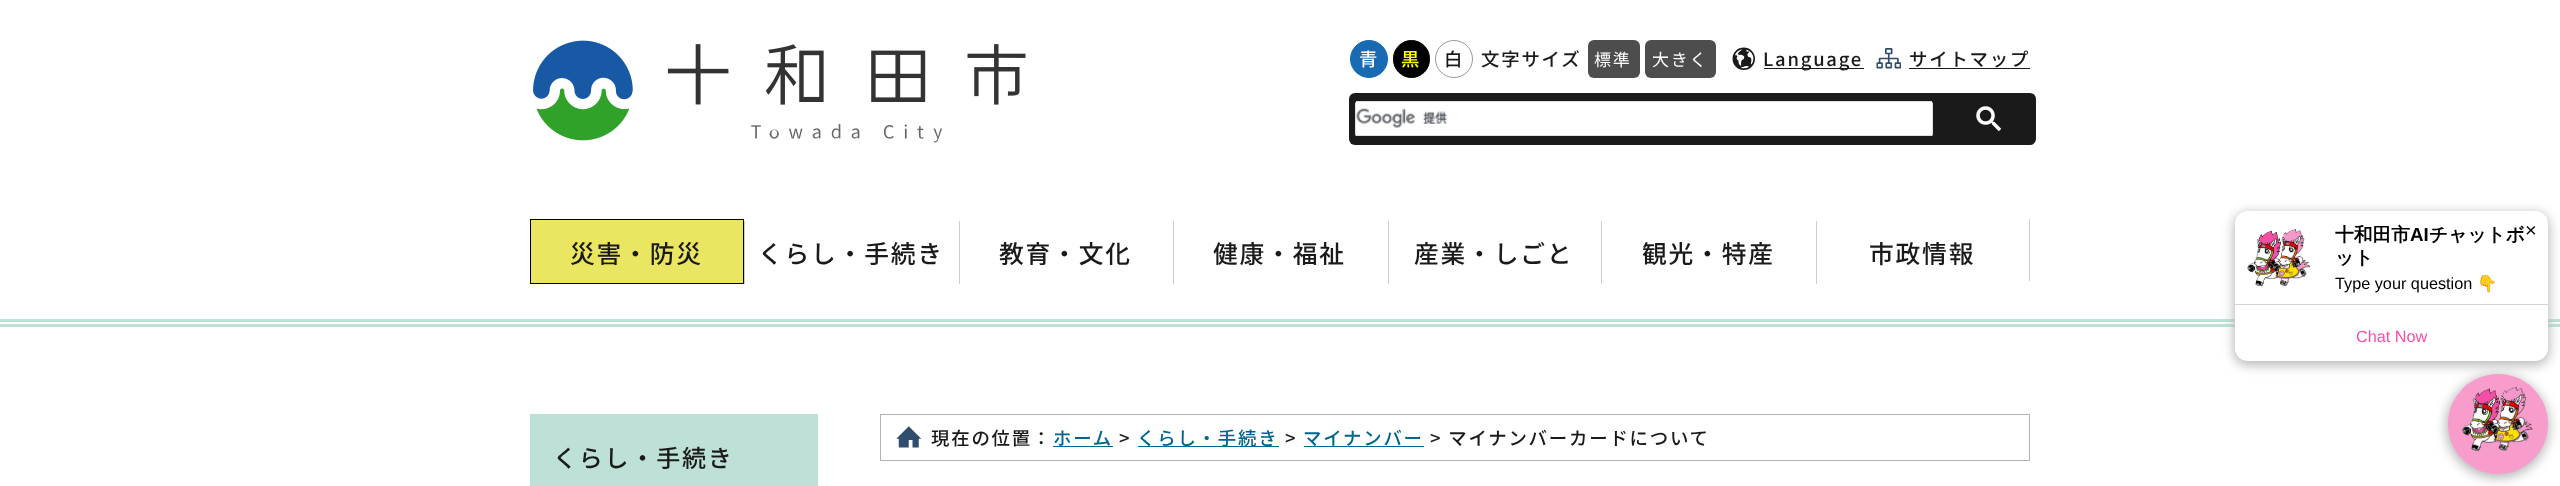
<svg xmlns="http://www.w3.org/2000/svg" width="2560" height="486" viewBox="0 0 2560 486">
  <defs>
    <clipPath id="clip1"><rect x="1355" y="99" width="578" height="40" rx="6"/></clipPath>
    <clipPath id="clip2"><rect x="2448" y="374" width="100" height="100" rx="50"/></clipPath>
  </defs>
  <rect width="100%" height="100%" fill="rgb(255,255,255)"/>
  <image x="533" y="40" width="493" height="103" href="pic1.png"/>
  <circle cx="1369" cy="59" r="18.5" fill="rgb(24,106,179)" stroke="rgb(24,106,179)"/>
  <text x="1359" y="66" font-family="Noto Sans JP" font-size="18.4" font-weight="500" letter-spacing="1.8" fill="rgb(255,255,255)">青</text>
  <rect x="1393.5" y="40.5" width="36" height="37" rx="18" fill="rgb(0,0,0)" stroke="rgb(0,0,0)"/>
  <text x="1401" y="66" font-family="Noto Sans JP" font-size="18.4" font-weight="500" letter-spacing="1.8" fill="rgb(255,255,0)">黒</text>
  <circle cx="1454" cy="59" r="18.5" fill="none" stroke="rgb(153,153,153)"/>
  <g font-family="Noto Sans JP" font-size="18.4" font-weight="500" letter-spacing="1.8" fill="rgb(26,26,26)">
    <text x="1444" y="66">白</text>
    <text x="1481" y="66">文字サイズ</text>
  </g>
  <rect x="1588" y="40" width="52" height="38" rx="6" fill="rgb(77,77,77)"/>
  <text x="1594" y="66" font-family="Noto Sans JP" font-size="17" letter-spacing="1.8" fill="rgb(255,255,255)">標準</text>
  <rect x="1645" y="40" width="71" height="38" rx="6" fill="rgb(77,77,77)"/>
  <text x="1652" y="66" font-family="Noto Sans JP" font-size="17" letter-spacing="1.8" fill="rgb(255,255,255)">大きく</text>
  <image x="1732" y="47" width="23" height="23" href="pic2.png"/>
  <rect x="1764" y="68" width="100" height="1" fill="rgb(26,26,26)"/>
  <text x="1763" y="66" font-family="Noto Sans JP" font-size="18.4" font-weight="500" letter-spacing="1.8" fill="rgb(26,26,26)">Language</text>
  <image x="1876" y="48" width="25" height="21" href="pic3.png"/>
  <text x="1909" y="66" font-family="Noto Sans JP" font-size="18.4" font-weight="500" letter-spacing="1.8" fill="rgb(26,26,26)">サイトマップ</text>
  <rect x="1909" y="68" width="121" height="1" fill="rgb(26,26,26)"/>
  <rect x="1349" y="93" width="687" height="52" rx="6" fill="rgb(26,26,26)"/>
  <g clip-path="url(#clip1)">
    <rect x="1355" y="101" width="578" height="35" fill="rgb(255,255,255)"/>
  </g>
  <path d="M1355 105V133L1356 136H1932L1933 133V105C1933 103 1932 102 1931 101H1357C1356 102 1355 103 1355 105ZM1356 102V135H1932V102Z" fill="rgb(223,225,229)" fill-rule="evenodd"/>
  <image x="1356" y="108" width="92" height="20" href="pic4.png"/>
  <image x="1976" y="106" width="25" height="25" href="pic5.png"/>
  <rect x="0" y="319" width="2560" height="3" fill="rgb(189,225,214)"/>
  <rect x="0" y="324" width="2560" height="3" fill="rgb(189,225,214)"/>
  <rect x="530.5" y="219.5" width="213" height="64" fill="rgb(235,230,97)" stroke="rgb(0,0,0)"/>
  <text x="570" y="263" font-family="Noto Sans JP" font-size="24.75" font-weight="500" letter-spacing="1.8" fill="rgb(26,26,26)">災害・防災</text>
  <rect x="744" y="221" width="1" height="63" fill="rgb(204,204,204)"/>
  <text x="758" y="263" font-family="Noto Sans JP" font-size="24.75" font-weight="500" letter-spacing="1.8" fill="rgb(26,26,26)">くらし・手続き</text>
  <rect x="959" y="221" width="1" height="63" fill="rgb(204,204,204)"/>
  <text x="999" y="263" font-family="Noto Sans JP" font-size="24.75" font-weight="500" letter-spacing="1.8" fill="rgb(26,26,26)">教育・文化</text>
  <rect x="1173" y="221" width="1" height="63" fill="rgb(204,204,204)"/>
  <text x="1213" y="263" font-family="Noto Sans JP" font-size="24.75" font-weight="500" letter-spacing="1.8" fill="rgb(26,26,26)">健康・福祉</text>
  <rect x="1388" y="221" width="1" height="63" fill="rgb(204,204,204)"/>
  <text x="1414" y="263" font-family="Noto Sans JP" font-size="24.75" font-weight="500" letter-spacing="1.8" fill="rgb(26,26,26)">産業・しごと</text>
  <rect x="1601" y="221" width="1" height="63" fill="rgb(204,204,204)"/>
  <text x="1642" y="263" font-family="Noto Sans JP" font-size="24.75" font-weight="500" letter-spacing="1.8" fill="rgb(26,26,26)">観光・特産</text>
  <rect x="1816" y="221" width="1" height="63" fill="rgb(204,204,204)"/>
  <text x="1869" y="263" font-family="Noto Sans JP" font-size="24.75" font-weight="500" letter-spacing="1.8" fill="rgb(26,26,26)">市政情報</text>
  <rect x="2029" y="219" width="1" height="62" fill="rgb(204,204,204)"/>
  <rect x="2234" y="213" width="315" height="152" rx="14" fill="rgb(181,181,181)" filter="blur(6px)"/>
  <rect x="2235" y="211" width="313" height="150" rx="13" fill="rgb(255,255,255)"/>
  <rect x="2235" y="304" width="313" height="1" fill="rgb(211,211,211)"/>
  <image x="2247" y="229" width="63" height="58" href="pic6.png"/>
  <text x="2335" y="241" font-family="WenQuanYi Zen Hei" font-size="18.75" font-weight="bold" fill="rgb(0,0,0)">十和田市</text>
  <text x="2410" y="241" font-family="Liberation Sans" font-size="18.75" font-weight="bold" fill="rgb(0,0,0)">AI</text>
  <g font-family="WenQuanYi Zen Hei" font-size="18.75" font-weight="bold" fill="rgb(0,0,0)">
    <text x="2429" y="241">チャットボ</text>
    <text x="2335" y="264">ット</text>
  </g>
  <text x="2335" y="289" font-family="Liberation Sans" font-size="16.25" fill="rgb(0,0,0)">Type your question</text>
  <text x="2477" y="289" font-family="Noto Color Emoji" font-size="16.25" fill="rgb(0,0,0)">👇</text>
  <text x="2525" y="237" font-family="Liberation Sans" font-size="20" fill="rgb(0,0,0)">×</text>
  <text x="2356" y="342" font-family="Liberation Sans" font-size="16.25" fill="rgb(245,81,166)">Chat Now</text>
  <rect x="2446" y="375" width="103" height="103" rx="51.5" fill="rgb(181,181,181)" filter="blur(6px)"/>
  <circle cx="2498" cy="424" r="50" fill="rgb(247,156,203)"/>
  <g clip-path="url(#clip2)">
    <rect x="2463" y="384" width="70" height="70" fill="rgb(247,156,203)"/>
  </g>
  <image x="2462" y="387" width="71" height="64" href="pic7.png"/>
  <rect x="880.5" y="414.5" width="1149" height="46" fill="none" stroke="rgb(179,179,179)"/>
  <image x="896" y="426" width="25" height="22" href="pic8.png"/>
  <text x="931" y="445" font-family="Noto Sans JP" font-size="18.4" font-weight="500" letter-spacing="1.8" fill="rgb(26,26,26)">現在の位置：</text>
  <text x="1053" y="445" font-family="Noto Sans JP" font-size="18.4" font-weight="500" letter-spacing="1.8" fill="rgb(0,101,143)">ホーム</text>
  <rect x="1053" y="446" width="60" height="1" fill="rgb(0,101,143)"/>
  <text x="1119" y="445" font-family="Noto Sans JP" font-size="18.4" font-weight="500" letter-spacing="1.8" fill="rgb(26,26,26)">&gt;</text>
  <rect x="1138" y="446" width="141" height="1" fill="rgb(0,101,143)"/>
  <text x="1137" y="445" font-family="Noto Sans JP" font-size="18.4" font-weight="500" letter-spacing="1.8" fill="rgb(0,101,143)">くらし・手続き</text>
  <text x="1285" y="445" font-family="Noto Sans JP" font-size="18.4" font-weight="500" letter-spacing="1.8" fill="rgb(26,26,26)">&gt;</text>
  <text x="1303" y="445" font-family="Noto Sans JP" font-size="18.4" font-weight="500" letter-spacing="1.8" fill="rgb(0,101,143)">マイナンバー</text>
  <rect x="1304" y="446" width="120" height="1" fill="rgb(0,101,143)"/>
  <text x="1430" y="445" font-family="Noto Sans JP" font-size="18.4" font-weight="500" letter-spacing="1.8" fill="rgb(26,26,26)">&gt; マイナンバーカードについて</text>
  <rect x="530" y="414" width="288" height="72" fill="rgb(189,225,214)"/>
  <text x="553" y="467" font-family="Noto Sans JP" font-size="24" font-weight="500" letter-spacing="1.8" fill="rgb(26,26,26)">くらし・手続き</text>
</svg>
